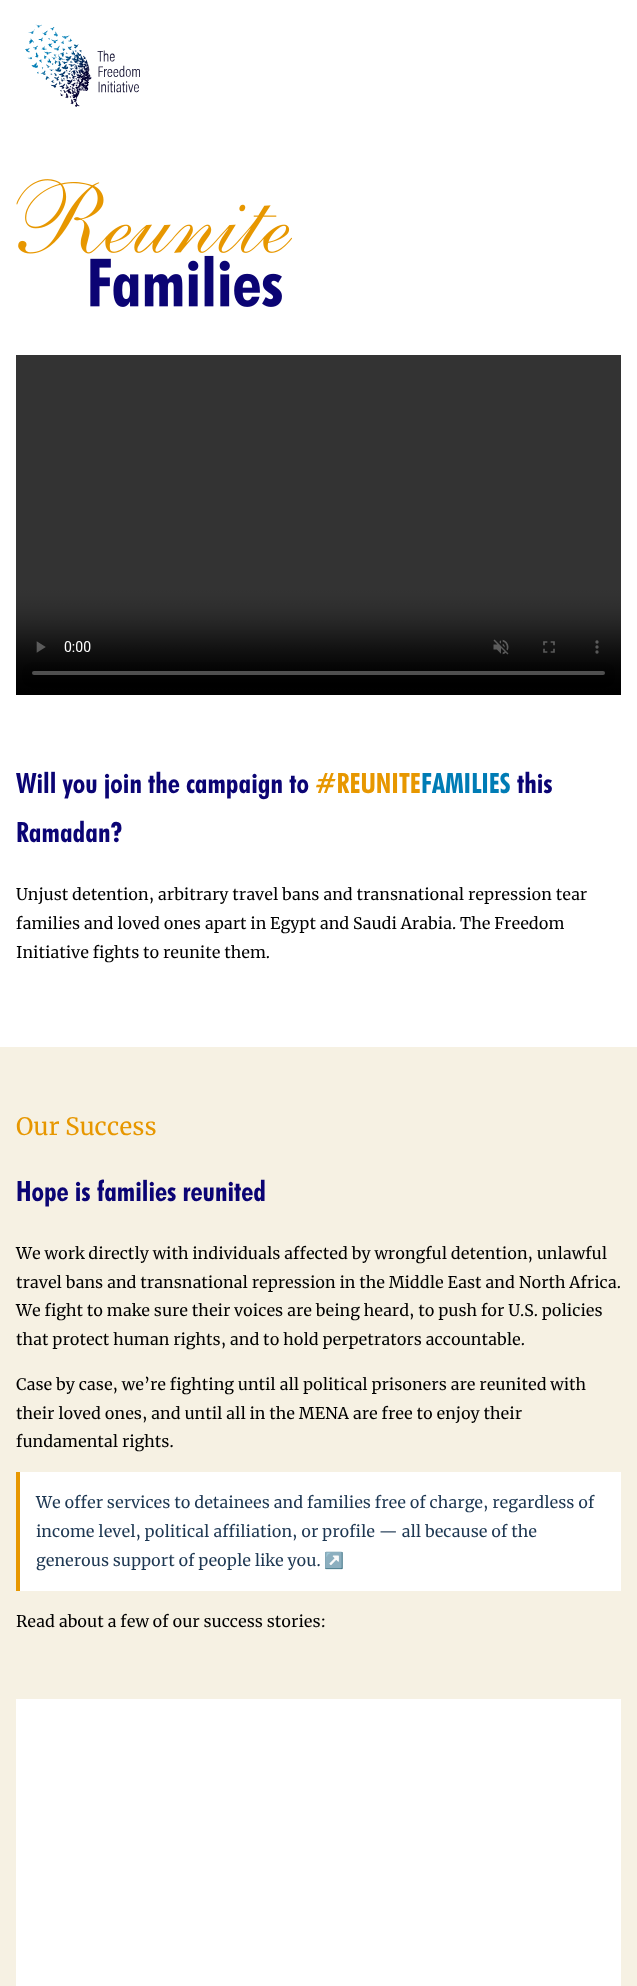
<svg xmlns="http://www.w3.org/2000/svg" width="637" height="1986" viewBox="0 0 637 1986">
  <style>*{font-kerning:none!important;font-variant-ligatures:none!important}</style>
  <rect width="100%" height="100%" fill="rgb(255,255,255)"/>
  <image x="25" y="24" width="115" height="83" href="pic1.png"/>
  <image x="16" y="179" width="276" height="128" href="pic2.png"/>
  <image x="16" y="355" width="605" height="340" href="pic3.png"/>
  <text x="16" y="793" font-family="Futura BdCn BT" font-size="28" font-weight="bold" fill="rgb(11,4,116)">Will you join the campaign to</text>
  <text x="315" y="793" font-family="Futura BdCn BT" font-size="28" font-weight="bold" fill="rgb(231,151,0)">#REUNITE</text>
  <text x="421" y="793" font-family="Futura BdCn BT" font-size="28" font-weight="bold" fill="rgb(0,124,181)">FAMILIES</text>
  <g font-family="Futura BdCn BT" font-size="28" font-weight="bold" fill="rgb(11,4,116)">
    <text x="517" y="793">this</text>
    <text x="16" y="842">Ramadan?</text>
  </g>
  <g font-family="Merriweather" font-size="16" fill="rgb(0,0,0)">
    <text>
      <tspan x="16" y="900">Unjust detention, arbitrary travel bans and transnational repression tear</tspan>
      <tspan x="16" y="929">families and loved ones apart in Egypt and Saudi Arabia. The Freedom</tspan>
      <tspan x="16" y="958">Initiative fights to reunite them.</tspan>
    </text>
  </g>
  <rect x="0" y="1047" width="637" height="939" fill="rgb(246,241,227)"/>
  <text x="16" y="1135" font-family="Merriweather" font-size="24" fill="rgb(231,151,0)">Our Success</text>
  <text x="16" y="1201" font-family="Futura BdCn BT" font-size="28" font-weight="bold" fill="rgb(11,4,116)">Hope is families reunited</text>
  <g font-family="Merriweather" font-size="16" fill="rgb(0,0,0)">
    <text>
      <tspan x="16" y="1259">We work directly with individuals affected by wrongful detention, unlawful</tspan>
      <tspan x="16" y="1288">travel bans and transnational repression in the Middle East and North Africa.</tspan>
      <tspan x="16" y="1316">We fight to make sure their voices are being heard, to push for U.S. policies</tspan>
      <tspan x="16" y="1345">that protect human rights, and to hold perpetrators accountable.</tspan>
    </text>
    <text>
      <tspan x="16" y="1390">Case by case, we’re fighting until all political prisoners are reunited with</tspan>
      <tspan x="16" y="1419">their loved ones, and until all in the MENA are free to enjoy their</tspan>
      <tspan x="16" y="1447">fundamental rights.</tspan>
    </text>
  </g>
  <rect x="20" y="1472" width="601" height="119" fill="rgb(255,255,255)"/>
  <rect x="16" y="1472" width="4" height="119" fill="rgb(231,151,0)"/>
  <g font-family="Merriweather" font-size="16" fill="rgb(29,55,82)">
    <text>
      <tspan x="36" y="1508">We offer services to detainees and families free of charge, regardless of</tspan>
      <tspan x="36" y="1537">income level, political affiliation, or profile — all because of the</tspan>
      <tspan x="36" y="1566">generous support of people like you.</tspan>
    </text>
  </g>
  <text x="324" y="1566" font-family="Noto Color Emoji" font-size="16" fill="rgb(29,55,82)">↗</text>
  <text x="16" y="1627" font-family="Merriweather" font-size="16" fill="rgb(0,0,0)">Read about a few of our success stories:</text>
  <rect x="16" y="1699" width="605" height="287" fill="rgb(255,255,255)"/>
</svg>
